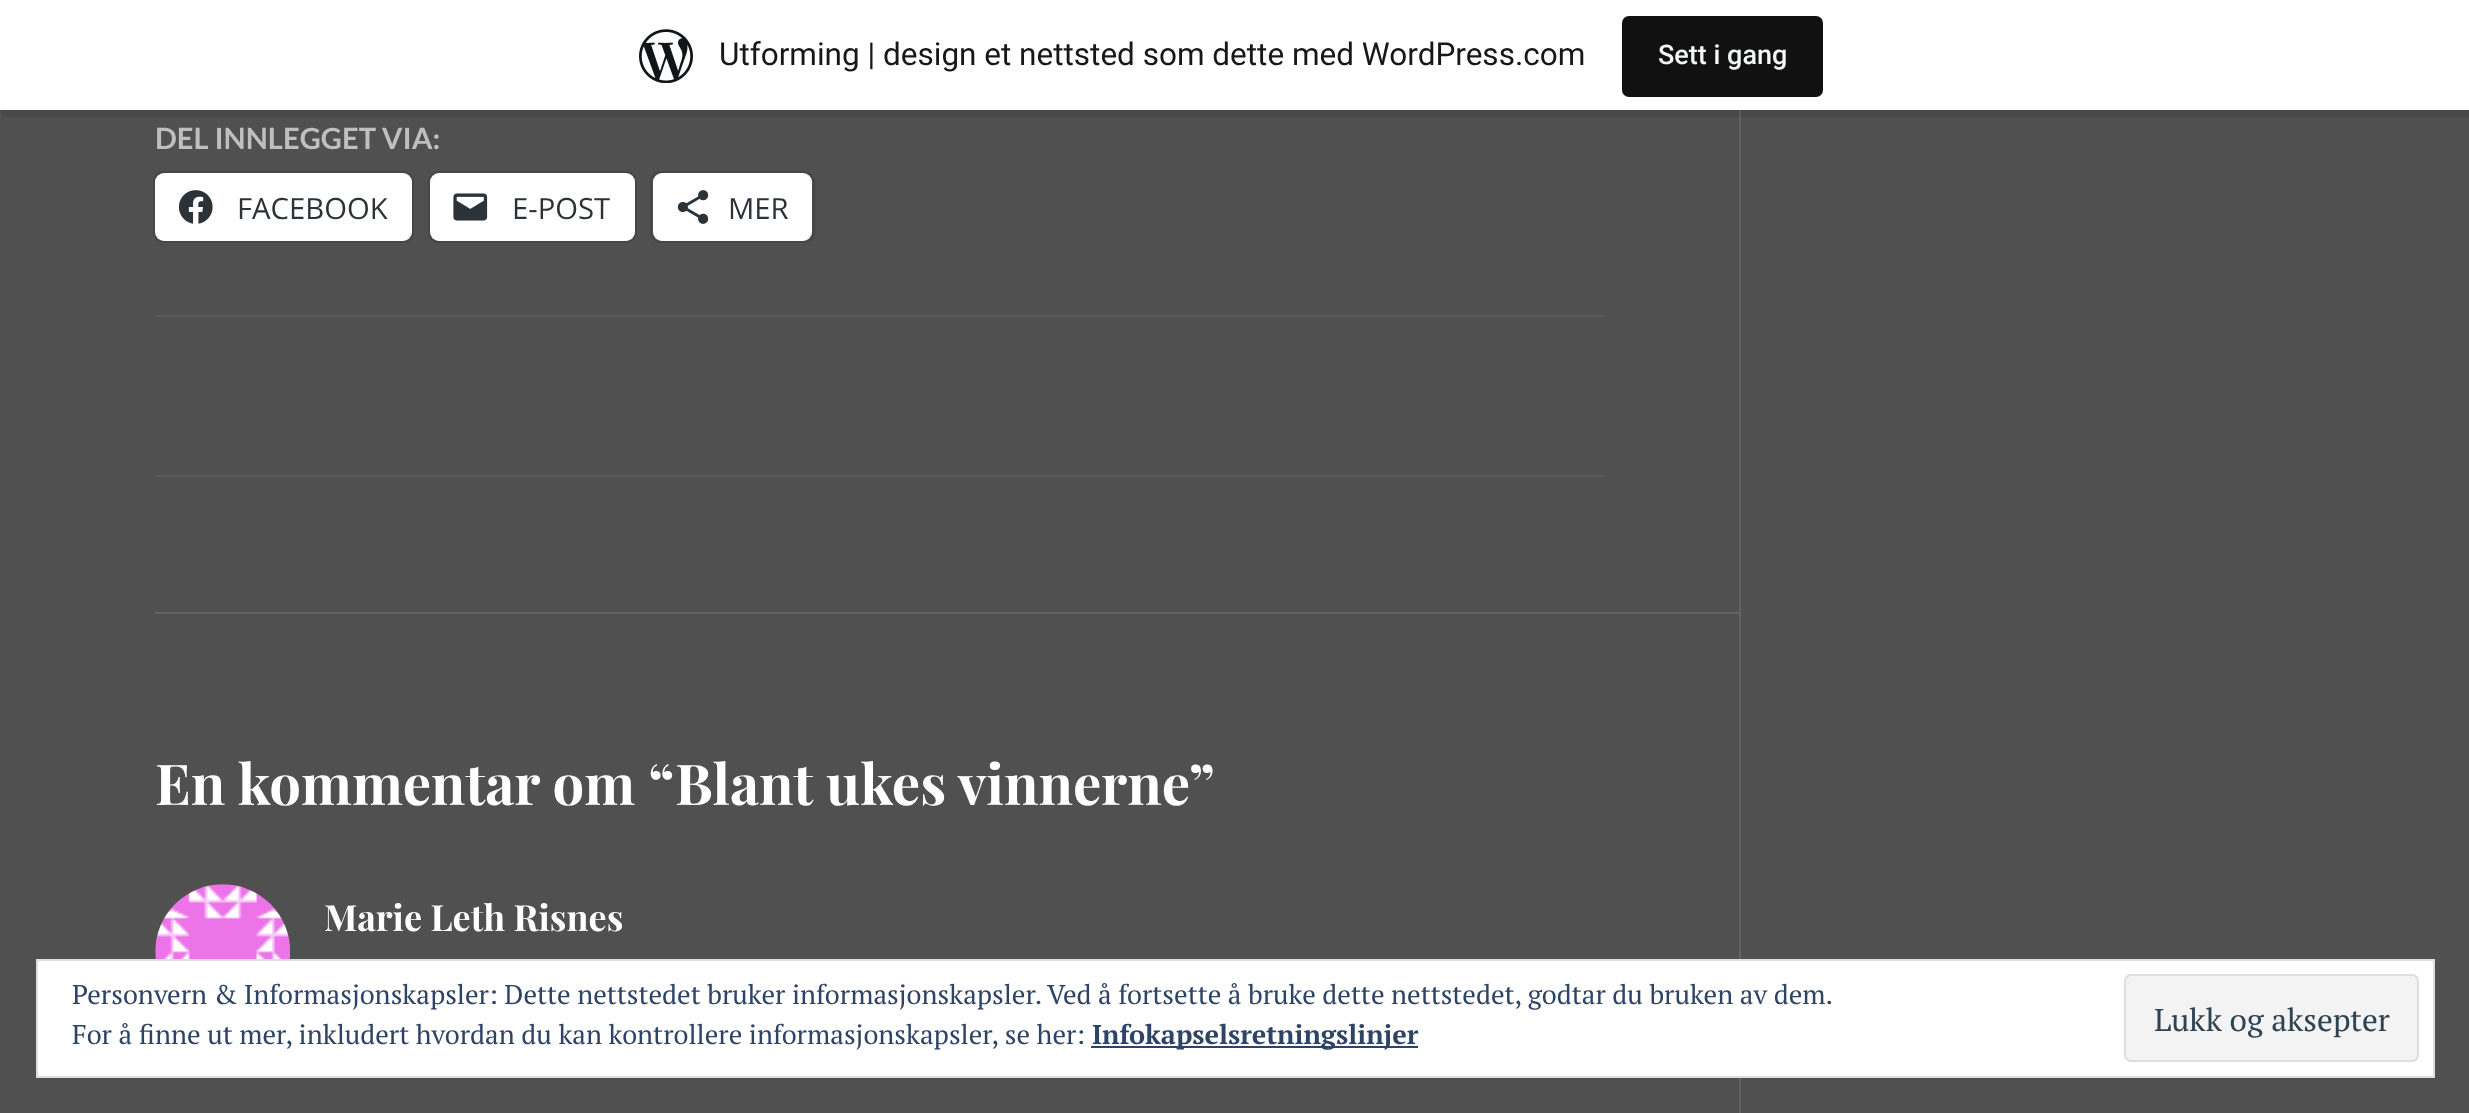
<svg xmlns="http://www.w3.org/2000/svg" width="2469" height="1113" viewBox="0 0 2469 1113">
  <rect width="100%" height="100%" fill="rgb(80,80,80)"/>
  <rect x="1739" y="110" width="2" height="1003" fill="rgb(99,99,99)"/>
  <path d="M2 110V117H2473V7H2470V110Z" fill="rgba(0,0,0,0.08)"/>
  <rect x="0" y="0" width="2469" height="110" fill="rgb(255,255,255)"/>
  <image x="639" y="29" width="54" height="54" href="pic1.png"/>
  <text x="719" y="65" font-family="Roboto" font-size="31.5" fill="rgb(23,23,23)">Utforming | design et nettsted som dette med WordPress.com</text>
  <rect x="1622" y="16" width="201" height="81" rx="7" fill="rgb(17,17,17)"/>
  <text x="1658" y="64" font-family="Roboto" font-size="27" font-weight="500" fill="rgb(246,247,247)">Sett i gang</text>
  <rect x="155" y="315" width="1449" height="2" fill="rgb(89,89,89)"/>
  <text x="155" y="149" font-family="Lato" font-size="29.25" font-weight="bold" fill="rgb(191,191,191)">DEL INNLEGGET VIA:</text>
  <rect x="154" y="172" width="259" height="70" rx="10" fill="none" stroke="rgb(70,70,70)" stroke-width="2"/>
  <rect x="155" y="173" width="257" height="68" rx="9" fill="rgb(255,255,255)"/>
  <image x="178" y="190" width="35" height="34" href="pic2.png"/>
  <text x="237" y="219" font-family="Open Sans" font-size="29.25" fill="rgb(44,51,56)">FACEBOOK</text>
  <rect x="429" y="172" width="207" height="70" rx="10" fill="none" stroke="rgb(70,70,70)" stroke-width="2"/>
  <rect x="430" y="173" width="205" height="68" rx="9" fill="rgb(255,255,255)"/>
  <image x="453" y="193" width="35" height="28" href="pic3.png"/>
  <text x="512" y="219" font-family="Open Sans" font-size="29.25" fill="rgb(44,51,56)">E-POST</text>
  <rect x="651" y="172" width="163" height="70" rx="10" fill="none" stroke="rgb(70,70,70)" stroke-width="2"/>
  <rect x="653" y="173" width="159" height="68" rx="9" fill="rgb(255,255,255)"/>
  <image x="677" y="190" width="32" height="34" href="pic4.png"/>
  <text x="728" y="219" font-family="Open Sans" font-size="29.25" fill="rgb(44,51,56)">MER</text>
  <rect x="155" y="475" width="1449" height="2" fill="rgb(89,89,89)"/>
  <rect x="155" y="612" width="1584" height="2" fill="rgb(99,99,99)"/>
  <g font-family="Playfair Display" font-size="56.25" font-weight="bold" fill="rgb(255,255,255)">
    <text x="155" y="805">En kommentar om “</text>
    <text x="675" y="805">Blant ukes vinnerne</text>
    <text x="1189" y="805">”</text>
  </g>
  <image x="155" y="884" width="136" height="75" href="pic5.png"/>
  <text x="324" y="931" font-family="Playfair Display" font-size="36" font-weight="bold" fill="rgb(255,255,255)">Marie Leth Risnes</text>
  <rect x="37" y="960" width="2397" height="117" fill="rgb(255,255,255)" stroke="rgb(222,222,222)" stroke-width="2"/>
  <g font-family="PT Serif" font-size="27" fill="rgb(46,68,103)">
    <text>
      <tspan x="72" y="1004">Personvern &amp; Informasjonskapsler: Dette nettstedet bruker informasjonskapsler. Ved å fortsette å bruke dette nettstedet, godtar du bruken av dem.</tspan>
      <tspan x="72" y="1044">For å finne ut mer, inkludert hvordan du kan kontrollere informasjonskapsler, se her:</tspan>
    </text>
  </g>
  <rect x="1091" y="1046" width="327" height="2" fill="rgb(46,68,103)"/>
  <text x="1092" y="1044" font-family="PT Serif" font-size="27" font-weight="bold" fill="rgb(46,68,103)">Infokapselsretningslinjer</text>
  <rect x="2125" y="975" width="293" height="86" rx="6" fill="rgb(243,243,243)" stroke="rgb(222,222,222)" stroke-width="2"/>
  <text x="2154" y="1031" font-family="PT Serif" font-size="31.5" fill="rgb(46,68,83)">Lukk og aksepter</text>
</svg>
